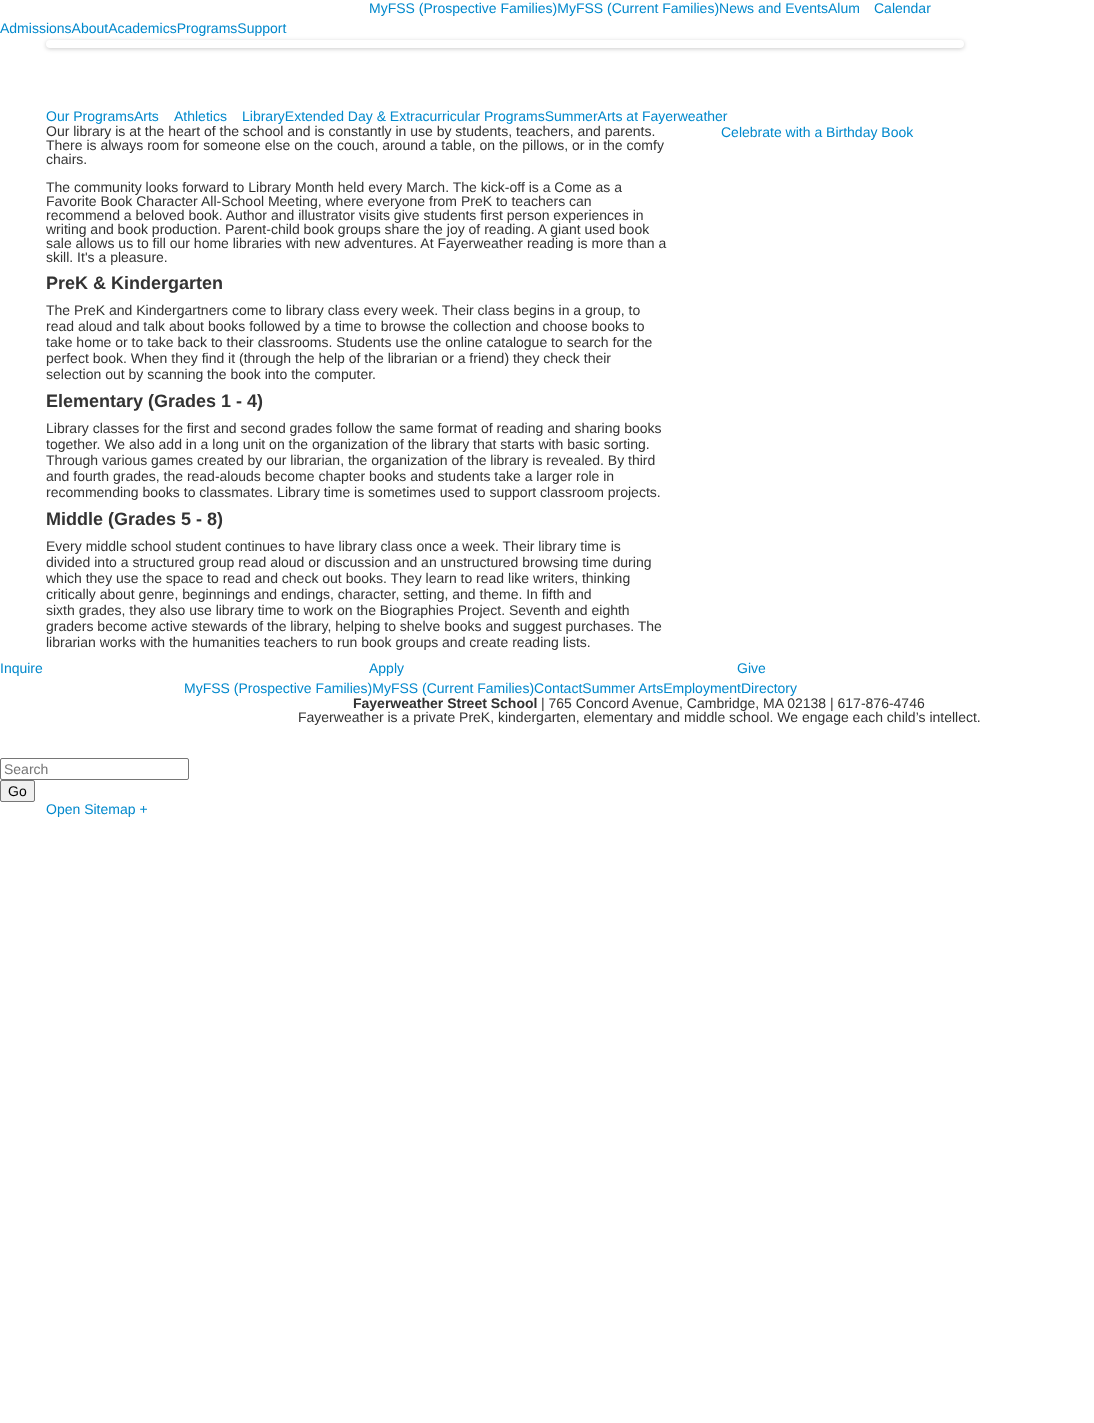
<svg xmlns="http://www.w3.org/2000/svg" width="1094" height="1423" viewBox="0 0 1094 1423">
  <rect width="100%" height="100%" fill="rgb(255,255,255)"/>
  <g font-family="Liberation Sans" font-size="14" fill="rgb(0,136,204)">
    <text x="369" y="13">MyFSS (Prospective Families)MyFSS (Current Families)News and EventsAlum</text>
    <text x="874" y="13">Calendar</text>
  </g>
  <rect x="46" y="41" width="918" height="8" rx="4" fill="rgba(0,0,0,0.2)" filter="blur(2px)"/>
  <text x="0" y="33" font-family="Liberation Sans" font-size="14" fill="rgb(0,136,204)">AdmissionsAboutAcademicsProgramsSupport</text>
  <rect x="46" y="40" width="918" height="8" rx="4" fill="rgb(255,255,255)"/>
  <g font-family="Liberation Sans" font-size="14" fill="rgb(0,136,204)">
    <text x="46" y="121">Our ProgramsArts</text>
    <text x="174" y="121">Athletics</text>
    <text x="242" y="121">LibraryExtended Day &amp; Extracurricular ProgramsSummerArts at Fayerweather</text>
  </g>
  <g font-family="Liberation Sans" font-size="14" fill="rgb(51,51,51)">
    <text>
      <tspan x="46" y="136">Our library is at the heart of the school and is constantly in use by students, teachers, and parents.</tspan>
      <tspan x="46" y="150">There is always room for someone else on the couch, around a table, on the pillows, or in the comfy</tspan>
      <tspan x="46" y="164">chairs.</tspan>
    </text>
    <text>
      <tspan x="46" y="192">The community looks forward to Library Month held every March. The kick-off is a Come as a</tspan>
      <tspan x="46" y="206">Favorite Book Character</tspan>
    </text>
    <text x="201" y="206">All-School Meeting, where everyone from PreK to teachers can</text>
    <text>
      <tspan x="46" y="220">recommend a beloved book. Author and illustrator visits give students first person experiences in</tspan>
      <tspan x="46" y="234">writing and book production. Parent-child book groups share the joy of reading. A giant used book</tspan>
      <tspan x="46" y="248">sale allows us to fill our home libraries with new adventures. At Fayerweather reading is more than a</tspan>
      <tspan x="46" y="262">skill. It's a pleasure.</tspan>
    </text>
  </g>
  <text x="46" y="289" font-family="Liberation Sans" font-size="18" font-weight="bold" fill="rgb(51,51,51)">PreK &amp; Kindergarten</text>
  <g font-family="Liberation Sans" font-size="14" fill="rgb(51,51,51)">
    <text>
      <tspan x="46" y="315">The PreK and Kindergartners come to library class every week. Their class begins in a group, to</tspan>
      <tspan x="46" y="331">read aloud and talk about books followed by a time to browse the collection and choose books to</tspan>
      <tspan x="46" y="347">take home or to take back to their classrooms. Students use the online catalogue to search for the</tspan>
      <tspan x="46" y="363">perfect book. When they find it (through the help of the librarian or a friend) they check their</tspan>
      <tspan x="46" y="379">selection out by scanning the book into the computer.</tspan>
    </text>
  </g>
  <text x="46" y="407" font-family="Liberation Sans" font-size="18" font-weight="bold" fill="rgb(51,51,51)">Elementary (Grades 1 - 4)</text>
  <g font-family="Liberation Sans" font-size="14" fill="rgb(51,51,51)">
    <text>
      <tspan x="46" y="433">Library classes for the first and second grades follow the same format of reading and sharing books</tspan>
      <tspan x="46" y="449">together. We also add in a long unit on the organization of the library that starts with basic sorting.</tspan>
      <tspan x="46" y="465">Through various games created by our librarian, the organization of the library is revealed. By third</tspan>
      <tspan x="46" y="481">and fourth grades, the read-alouds become chapter books and students take a larger role in</tspan>
      <tspan x="46" y="497">recommending books to classmates. Library time is sometimes used to support classroom projects.</tspan>
    </text>
  </g>
  <text x="46" y="525" font-family="Liberation Sans" font-size="18" font-weight="bold" fill="rgb(51,51,51)">Middle (Grades 5 - 8)</text>
  <g font-family="Liberation Sans" font-size="14" fill="rgb(51,51,51)">
    <text>
      <tspan x="46" y="551">Every middle school student continues to have library class once a week. Their library time is</tspan>
      <tspan x="46" y="567">divided into a structured group read aloud or discussion and an unstructured browsing time during</tspan>
      <tspan x="46" y="583">which they use the space to read and check out books. They learn to read like writers, thinking</tspan>
      <tspan x="46" y="599">critically about genre, beginnings and endings, character, setting, and theme. In fifth and</tspan>
      <tspan x="46" y="615">sixth grades, they also use library time to work on the Biographies Project. Seventh and eighth</tspan>
      <tspan x="46" y="631">graders become active stewards of the library, helping to shelve books and suggest purchases. The</tspan>
      <tspan x="46" y="647">librarian works with the humanities teachers to run book groups and create reading lists.</tspan>
    </text>
  </g>
  <g font-family="Liberation Sans" font-size="14" fill="rgb(0,136,204)">
    <text x="721" y="137">Celebrate with a Birthday Book</text>
    <text x="0" y="673">Inquire</text>
    <text x="369" y="673">Apply</text>
    <text x="737" y="673">Give</text>
    <text x="184" y="693">MyFSS (Prospective Families)MyFSS (Current Families)ContactSummer ArtsEmploymentDirectory</text>
  </g>
  <text x="353" y="708" font-family="Liberation Sans" font-size="14" font-weight="bold" fill="rgb(51,51,51)">Fayerweather Street School</text>
  <g font-family="Liberation Sans" font-size="14" fill="rgb(51,51,51)">
    <text x="541" y="708">| 765 Concord Avenue, Cambridge, MA 02138 | 617-876-4746</text>
    <text x="298" y="722">Fayerweather is a private PreK, kindergarten, elementary and middle school. We engage each child’s intellect.</text>
  </g>
  <rect x="0.5" y="758.5" width="188" height="21" rx="1.5" fill="none" stroke="rgb(118,118,118)"/>
  <text x="4" y="774" font-family="Liberation Sans" font-size="14" fill="rgb(117,117,117)">Search</text>
  <rect x="0.5" y="780.5" width="34" height="21" rx="1.5" fill="rgb(239,239,239)" stroke="rgb(118,118,118)"/>
  <text x="8" y="796" font-family="Liberation Sans" font-size="14" fill="rgb(0,0,0)">Go</text>
  <text x="46" y="814" font-family="Liberation Sans" font-size="14" fill="rgb(0,136,204)">Open Sitemap +</text>
</svg>
